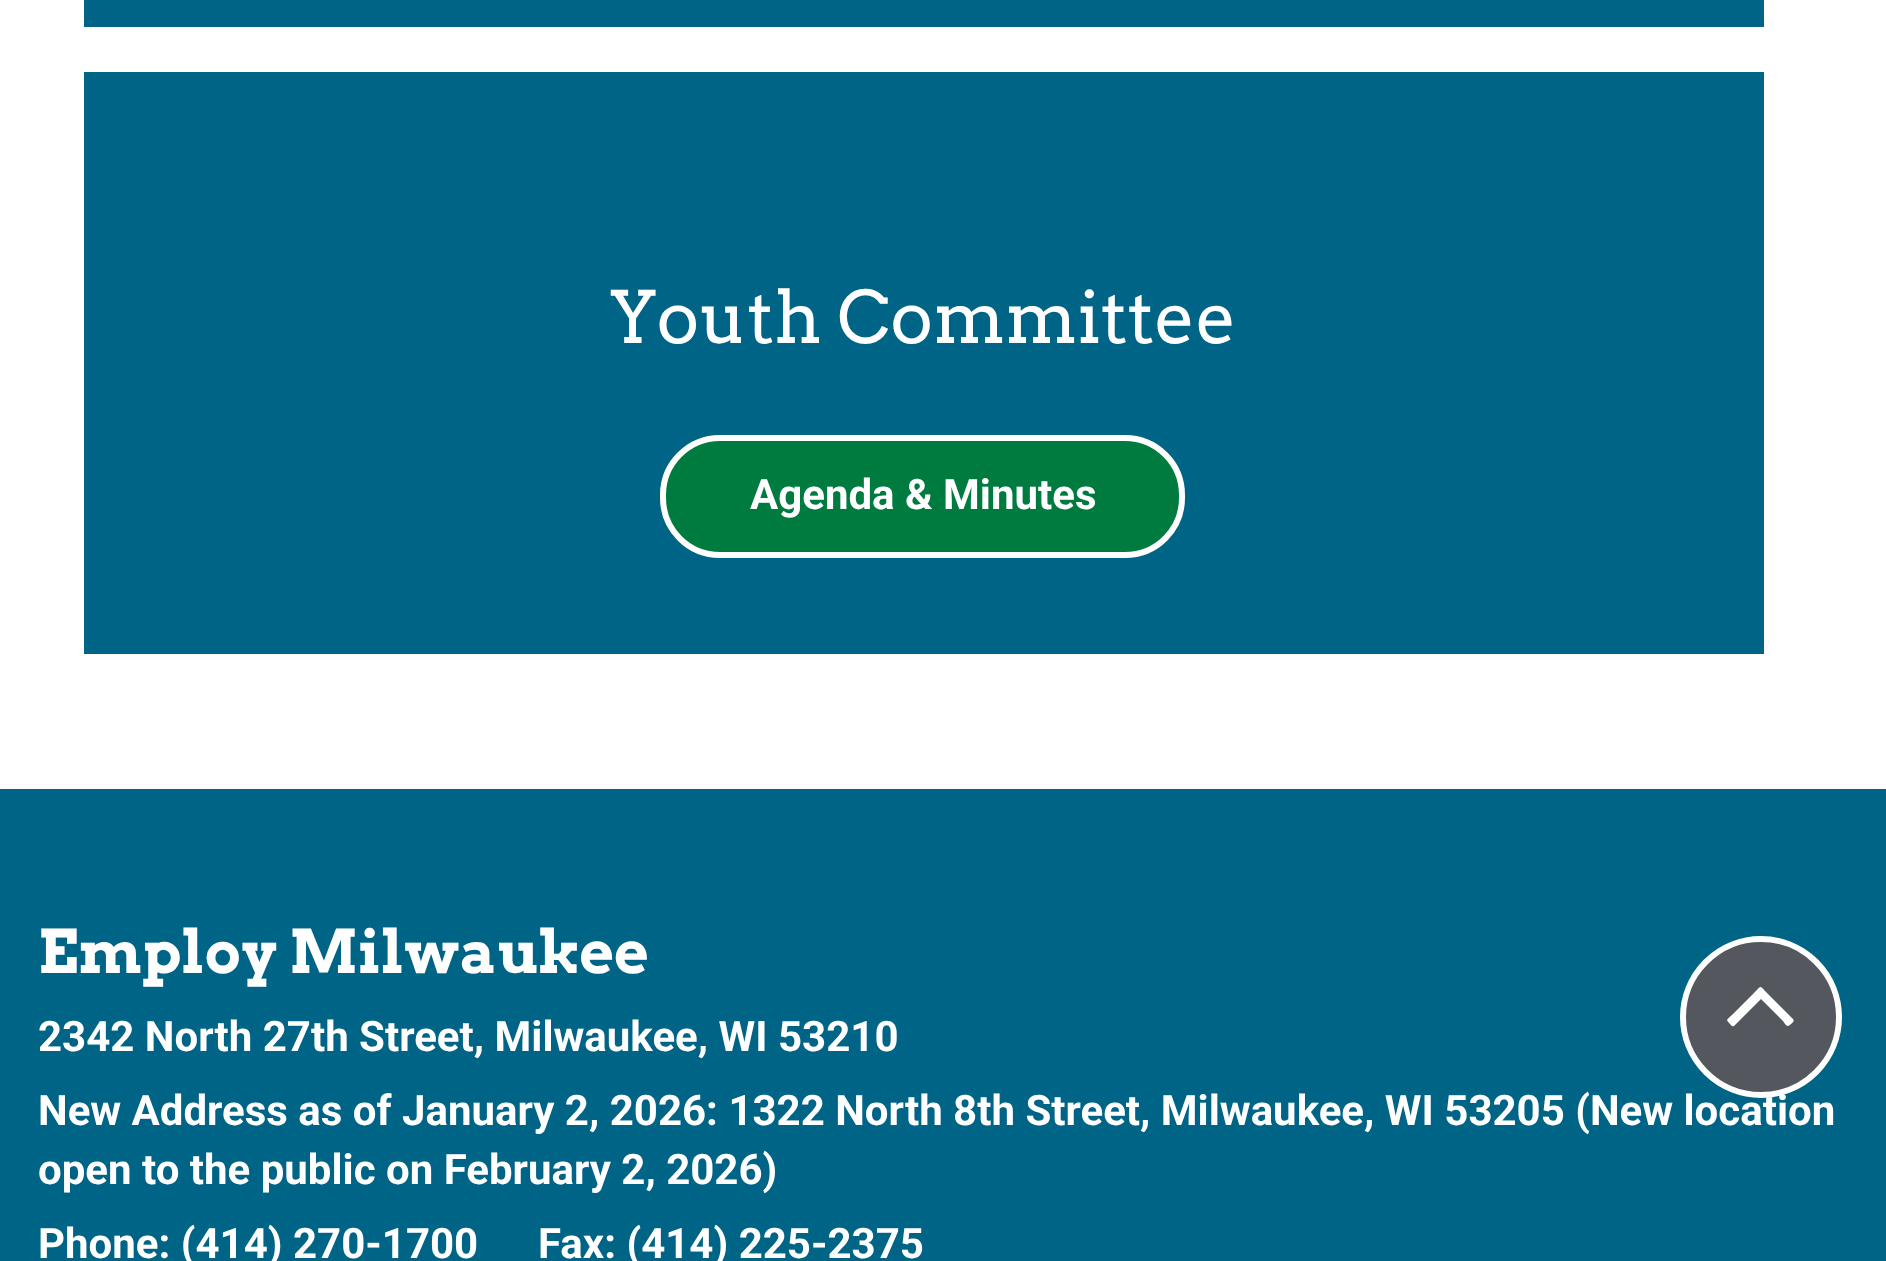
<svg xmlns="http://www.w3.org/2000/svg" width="1886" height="1261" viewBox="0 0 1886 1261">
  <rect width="100%" height="100%" fill="rgb(255,255,255)"/>
  <rect x="84" y="0" width="1680" height="27" fill="rgb(0,100,135)"/>
  <rect x="84" y="72" width="1680" height="582" fill="rgb(0,100,135)"/>
  <text x="609" y="343" font-family="Arvo" font-size="72" fill="rgb(255,255,255)">Youth Committee</text>
  <rect x="663" y="438" width="519" height="117" rx="57" fill="rgb(0,123,64)" stroke="rgb(255,255,255)" stroke-width="6"/>
  <text x="750" y="509" font-family="Roboto" font-size="42" font-weight="bold" fill="rgb(255,255,255)">Agenda &amp; Minutes</text>
  <rect x="0" y="789" width="1886" height="472" fill="rgb(0,100,135)"/>
  <text x="38" y="973" font-family="Arvo" font-size="60" font-weight="bold" fill="rgb(255,255,255)">Employ Milwaukee</text>
  <g font-family="Roboto" font-size="42" font-weight="bold" fill="rgb(255,255,255)">
    <text>
      <tspan x="38" y="1051">2342 North 27th Street, Milwaukee, WI 53210</tspan>
      <tspan x="38" y="1125">New Address as of January 2, 2026: 1322 North 8th Street, Milwaukee, WI 53205 (New location</tspan>
      <tspan x="38" y="1184">open to the public on February 2, 2026)</tspan>
      <tspan x="38" y="1258">Phone: (414) 270-1700</tspan>
    </text>
    <text x="538" y="1258">Fax: (414) 225-2375</text>
  </g>
  <circle cx="1761" cy="1017" r="78" fill="rgb(85,87,94)" stroke="rgb(255,255,255)" stroke-width="6"/>
  <path d="M1793 1019C1795 1021 1792 1023 1791 1024C1787 1028 1786 1025 1783 1021L1761 999L1734 1026C1732 1027 1731 1025 1730 1024C1725 1019 1727 1020 1733 1014L1754 993C1762 985 1759 985 1767 993Z" fill="rgb(255,255,255)"/>
</svg>
